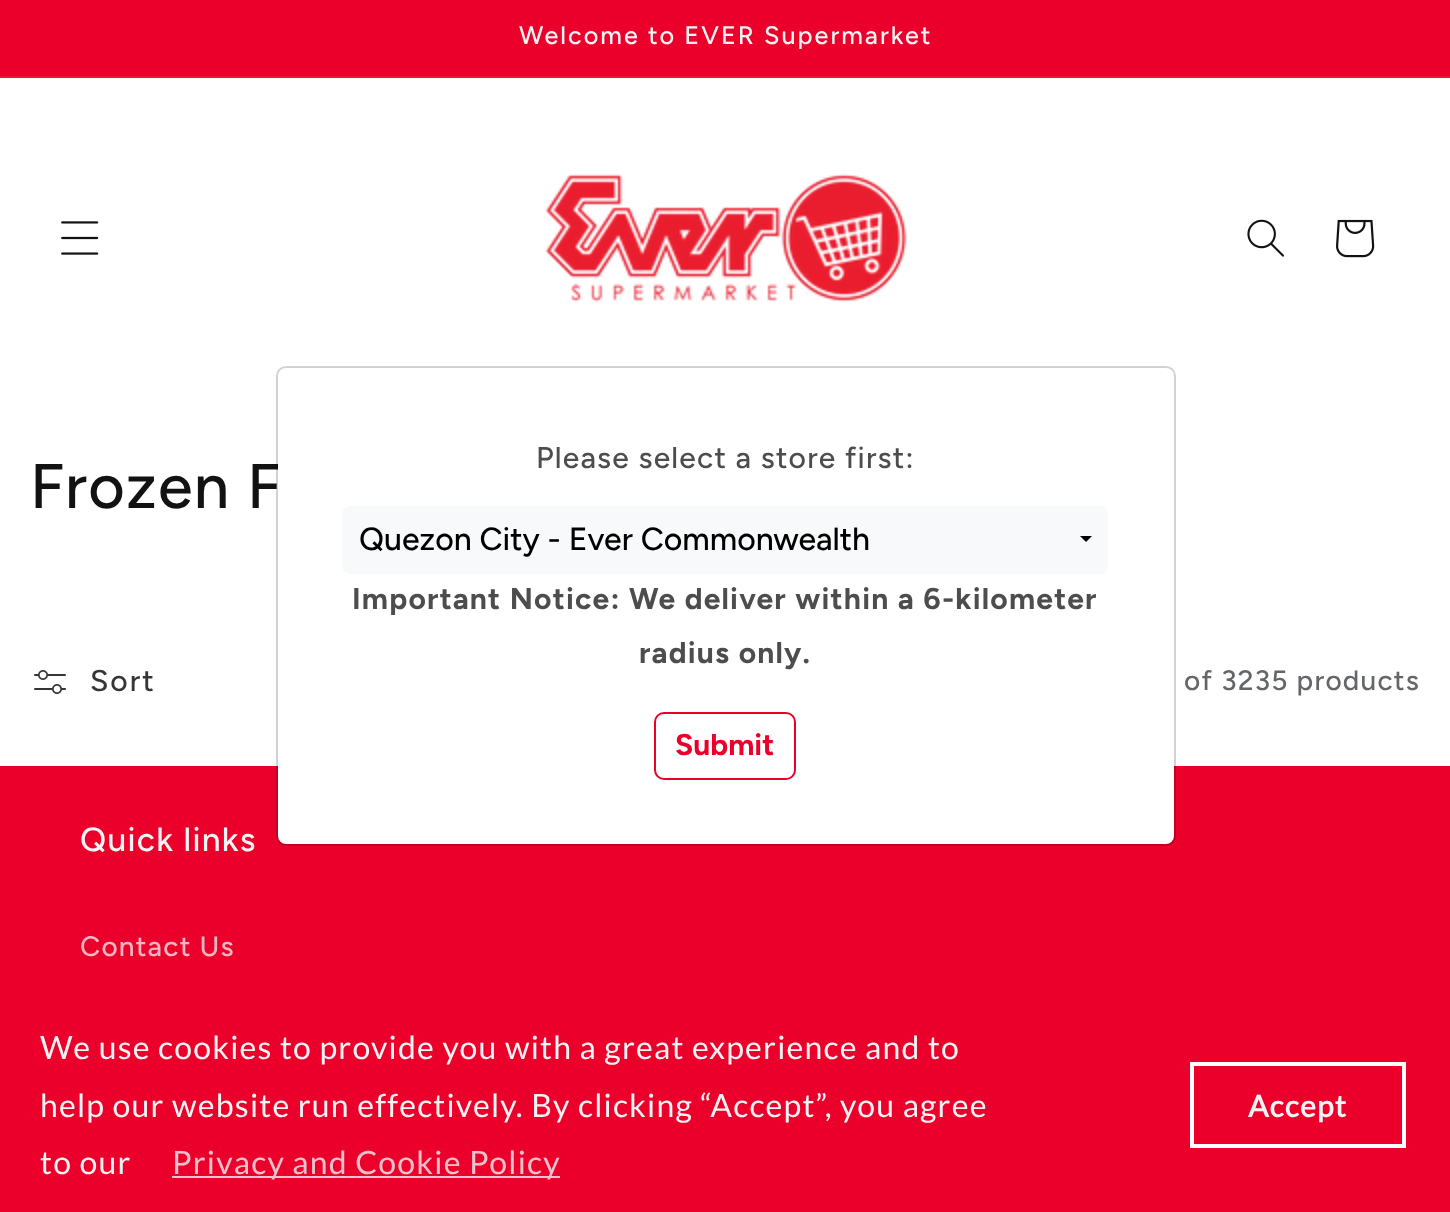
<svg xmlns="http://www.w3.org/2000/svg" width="1450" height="1212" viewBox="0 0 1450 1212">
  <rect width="100%" height="100%" fill="rgb(255,255,255)"/>
  <rect x="0" y="0" width="1450" height="76" fill="rgb(234,0,42)"/>
  <rect x="0" y="76" width="1450" height="2" fill="rgb(235,19,58)"/>
  <text x="519" y="44" font-family="Figtree" font-size="25.25" font-weight="500" letter-spacing="2" fill="rgb(243,243,243)">Welcome to EVER Supermarket</text>
  <image x="61" y="221" width="38" height="34" href="pic1.png"/>
  <image x="545" y="174" width="362" height="129" href="pic2.png"/>
  <image x="1247" y="219" width="37" height="38" href="pic3.png"/>
  <image x="1336" y="219" width="39" height="39" href="pic4.png"/>
  <text x="30" y="508" font-family="Figtree" font-size="63" font-weight="500" letter-spacing="1.25" fill="rgb(18,18,18)">Frozen F</text>
  <rect x="0" y="766" width="1450" height="446" fill="rgb(234,0,42)"/>
  <rect x="278" y="368" width="896" height="476" rx="8" fill="rgb(255,255,255)"/>
  <rect x="277" y="367" width="898" height="478" rx="9" fill="none" stroke="rgba(0,0,0,0.18)" stroke-width="2"/>
  <text x="536" y="468" font-family="Figtree" font-size="30" font-weight="500" letter-spacing="1.2" fill="rgb(77,77,77)">Please select a store first:</text>
  <rect x="342" y="506" width="766" height="68" rx="8" fill="rgb(248,249,250)"/>
  <text x="359" y="550" font-family="Figtree" font-size="32" font-weight="500" fill="rgb(0,0,0)">Quezon City - Ever Commonwealth</text>
  <path d="M1080 536H1092L1086 542Z" fill="rgb(0,0,0)"/>
  <g font-family="Figtree" font-size="30" font-weight="bold" letter-spacing="1.2" fill="rgb(77,77,77)">
    <text x="352" y="609">Important Notice: We deliver within a 6-kilometer</text>
    <text x="639" y="663">radius only.</text>
  </g>
  <rect x="655" y="713" width="140" height="66" rx="9" fill="none" stroke="rgb(234,0,42)" stroke-width="2"/>
  <text x="675" y="755" font-family="Figtree" font-size="30" font-weight="bold" fill="rgb(234,0,42)">Submit</text>
  <image x="34" y="670" width="32" height="24" href="pic5.png"/>
  <text x="90" y="691" font-family="Figtree" font-size="30" font-weight="500" letter-spacing="2" fill="rgb(54,54,54)">Sort</text>
  <text x="1184" y="690" font-family="Figtree" font-size="28" font-weight="500" letter-spacing="1.2" fill="rgb(100,102,105)">of 3235 products</text>
  <text x="80" y="851" font-family="Figtree" font-size="33.5" font-weight="500" letter-spacing="1.25" fill="rgb(243,243,243)">Quick links</text>
  <text x="80" y="956" font-family="Figtree" font-size="28" font-weight="500" letter-spacing="1.2" fill="rgb(241,182,193)">Contact Us</text>
  <g font-family="Lato" font-size="32" letter-spacing="1.2" fill="rgb(243,243,243)">
    <text>
      <tspan x="40" y="1059">We use cookies to provide you with a great experience and to</tspan>
      <tspan x="40" y="1117">help our website run effectively. By clicking “Accept”, you agree</tspan>
      <tspan x="40" y="1174">to our</tspan>
    </text>
  </g>
  <rect x="172" y="1176" width="388" height="2" fill="rgb(241,194,203)"/>
  <text x="172" y="1174" font-family="Lato" font-size="32" letter-spacing="1.2" fill="rgb(241,194,203)">Privacy and Cookie Policy</text>
  <rect x="1192" y="1064" width="212" height="82" fill="none" stroke="rgb(255,255,255)" stroke-width="4"/>
  <text x="1248" y="1117" font-family="Lato" font-size="30" font-weight="bold" letter-spacing="1.2" fill="rgb(243,243,243)">Accept</text>
</svg>
